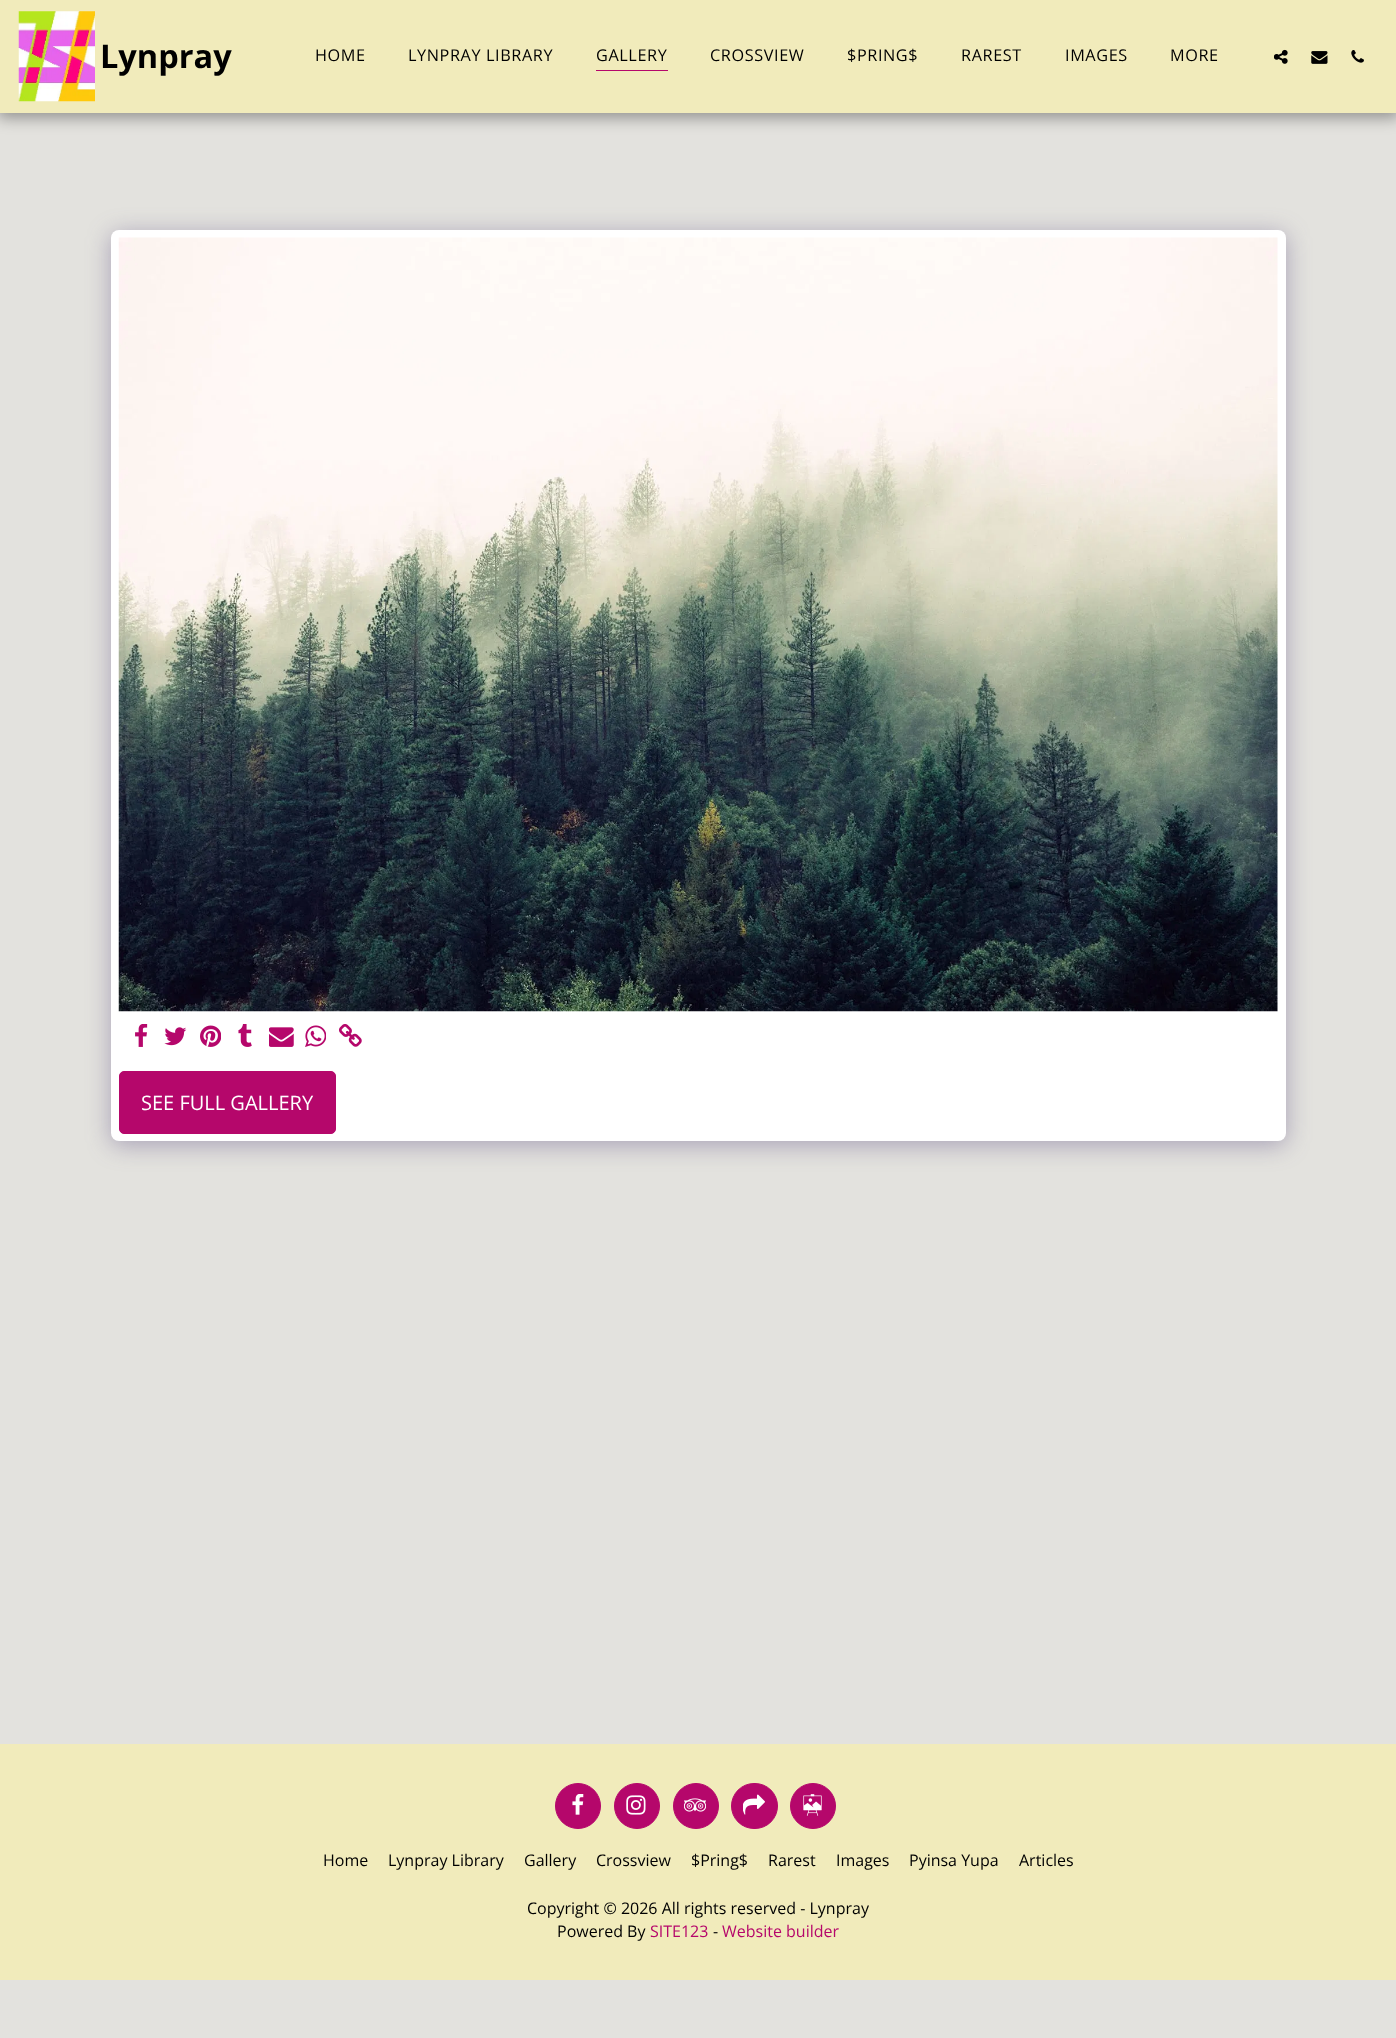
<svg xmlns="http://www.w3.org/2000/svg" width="1396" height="2038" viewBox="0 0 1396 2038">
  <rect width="100%" height="100%" fill="rgb(227,226,222)"/>
  <rect x="-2" y="0" width="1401" height="118" fill="rgba(0,0,0,0.35)" filter="blur(7.5px)"/>
  <rect x="0" y="0" width="1396" height="113" fill="rgb(241,235,187)"/>
  <image x="18" y="11" width="77" height="91" href="pic1.png"/>
  <text x="100" y="68" font-family="Open Sans" font-size="32.5" font-weight="bold" fill="rgb(0,0,0)">Lynpray</text>
  <g font-family="Open Sans" font-size="16.25" letter-spacing="0.6" fill="rgb(0,0,0)">
    <text x="315" y="61">HOME</text>
    <text x="408" y="61">LYNPRAY LIBRARY</text>
    <text x="596" y="61">GALLERY</text>
  </g>
  <rect x="596" y="70" width="72" height="1" fill="rgb(181,7,107)"/>
  <g font-family="Open Sans" font-size="16.25" letter-spacing="0.6" fill="rgb(0,0,0)">
    <text x="710" y="61">CROSSVIEW</text>
    <text x="847" y="61">$PRING$</text>
    <text x="961" y="61">RAREST</text>
    <text x="1065" y="61">IMAGES</text>
    <text x="1170" y="61">MORE</text>
  </g>
  <image x="1274" y="49" width="14" height="15" href="pic2.png"/>
  <image x="1311" y="51" width="17" height="13" href="pic3.png"/>
  <image x="1351" y="50" width="13" height="13" href="pic4.png"/>
  <rect x="111" y="234" width="1175" height="911" rx="8" fill="rgba(77,63,122,0.4)" filter="blur(12.5px)"/>
  <rect x="111" y="230" width="1175" height="911" rx="8" fill="rgb(255,255,255)"/>
  <image x="118" y="237" width="1160" height="775" href="pic5.png"/>
  <image x="135" y="1024" width="13" height="23" href="pic6.png"/>
  <image x="164" y="1027" width="23" height="19" href="pic7.png"/>
  <image x="200" y="1025" width="21" height="22" href="pic8.png"/>
  <image x="238" y="1024" width="14" height="23" href="pic9.png"/>
  <image x="269" y="1027" width="25" height="20" href="pic10.png"/>
  <image x="305" y="1025" width="21" height="22" href="pic11.png"/>
  <image x="339" y="1024" width="23" height="23" href="pic12.png"/>
  <rect x="119.5" y="1071.5" width="216" height="62" rx="4.5" fill="rgb(181,7,107)" stroke="rgb(181,7,107)"/>
  <text x="141" y="1110" font-family="Open Sans" font-size="20" fill="rgb(255,255,255)">SEE FULL GALLERY</text>
  <rect x="0" y="1744" width="1396" height="236" fill="rgb(241,235,187)"/>
  <circle cx="578" cy="1806" r="22.5" fill="rgb(181,7,107)" stroke="rgb(181,7,107)"/>
  <image x="572" y="1794" width="12" height="21" href="pic13.png"/>
  <circle cx="637" cy="1806" r="22.5" fill="rgb(181,7,107)" stroke="rgb(181,7,107)"/>
  <image x="626" y="1795" width="20" height="20" href="pic14.png"/>
  <circle cx="696" cy="1806" r="22.5" fill="rgb(181,7,107)" stroke="rgb(181,7,107)"/>
  <image x="684" y="1798" width="22" height="14" href="pic15.png"/>
  <rect x="731.5" y="1783.5" width="46" height="45" rx="22.5" fill="rgb(181,7,107)" stroke="rgb(181,7,107)"/>
  <image x="743" y="1794" width="22" height="21" href="pic16.png"/>
  <circle cx="813" cy="1806" r="22.5" fill="rgb(181,7,107)" stroke="rgb(181,7,107)"/>
  <image x="803" y="1794" width="19" height="22" href="pic17.png"/>
  <g font-family="Open Sans" font-size="16" fill="rgb(0,0,0)">
    <text x="323" y="1866">Home</text>
    <text x="388" y="1866">Lynpray Library</text>
    <text x="524" y="1866">Gallery</text>
    <text x="596" y="1866">Crossview</text>
    <text x="691" y="1866">$Pring$</text>
    <text x="768" y="1866">Rarest</text>
    <text x="836" y="1866">Images</text>
    <text x="909" y="1866">Pyinsa Yupa</text>
    <text x="1019" y="1866">Articles</text>
    <text x="527" y="1914">Copyright © 2026 All rights reserved - Lynpray</text>
    <text x="557" y="1937">Powered By</text>
  </g>
  <text x="650" y="1937" font-family="Open Sans" font-size="16" fill="rgb(181,7,107)">SITE123</text>
  <text x="713" y="1937" font-family="Open Sans" font-size="16" fill="rgb(0,0,0)">-</text>
  <text x="722" y="1937" font-family="Open Sans" font-size="16" fill="rgb(181,7,107)">Website builder</text>
</svg>
